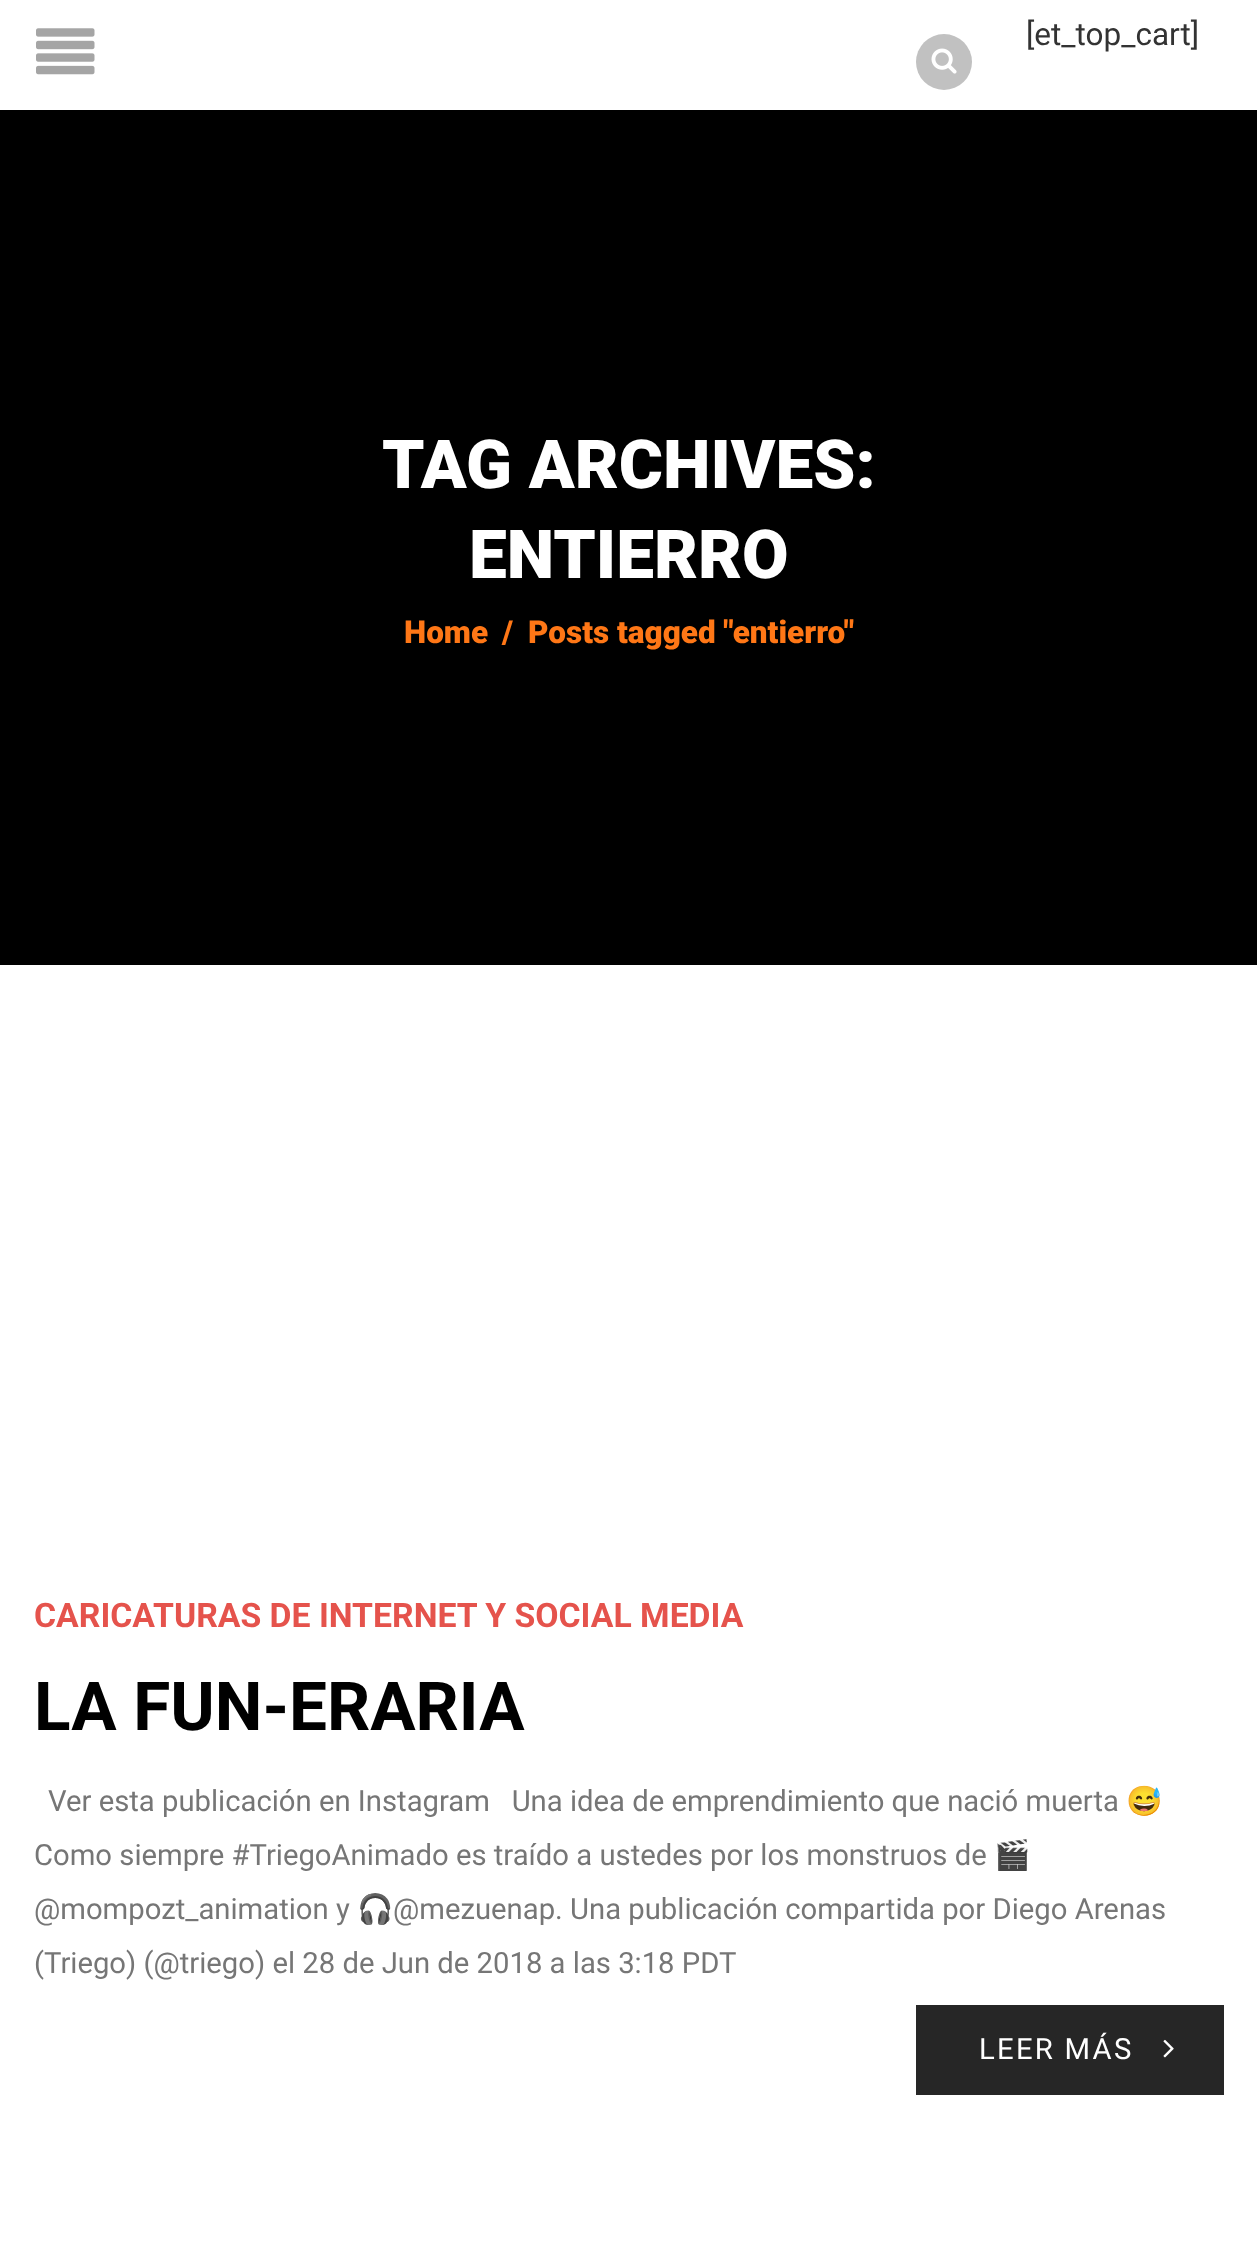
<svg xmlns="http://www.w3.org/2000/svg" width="1257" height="2261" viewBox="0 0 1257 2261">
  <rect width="100%" height="100%" fill="rgb(255,255,255)"/>
  <image x="36" y="28" width="59" height="47" href="pic1.png"/>
  <circle cx="944" cy="62" r="28" fill="rgb(193,193,193)"/>
  <image x="931" y="48" width="26" height="26" href="pic2.png"/>
  <text x="1026" y="45" font-family="Roboto" font-size="31.5" fill="rgb(51,51,51)">[et_top_cart]</text>
  <rect x="0" y="110" width="1257" height="855" fill="rgb(0,0,0)"/>
  <g font-family="Roboto" font-size="67.5" font-weight="900" fill="rgb(255,255,255)">
    <text x="382" y="488">TAG ARCHIVES:</text>
    <text x="469" y="578">ENTIERRO</text>
  </g>
  <g font-family="Roboto" font-size="31.5" font-weight="900" fill="rgb(255,119,22)">
    <text x="404" y="643">Home</text>
    <text x="502" y="643">/</text>
    <text x="528" y="643">Posts tagged "entierro"</text>
  </g>
  <text x="34" y="1627" font-family="Roboto" font-size="33.75" font-weight="bold" fill="rgb(229,83,76)">CARICATURAS DE INTERNET Y SOCIAL MEDIA</text>
  <text x="34" y="1730" font-family="Roboto" font-size="67.5" font-weight="bold" fill="rgb(0,0,0)">LA FUN-ERARIA</text>
  <text x="48" y="1811" font-family="Roboto" font-size="29.25" fill="rgb(118,118,118)" xml:space="preserve">Ver esta publicación en Instagram   Una idea de emprendimiento que nació muerta</text>
  <text x="1126" y="1811" font-family="Noto Color Emoji" font-size="29.25" fill="rgb(118,118,118)">😅</text>
  <text x="34" y="1865" font-family="Roboto" font-size="29.25" fill="rgb(118,118,118)">Como siempre #TriegoAnimado es traído a ustedes por los monstruos de</text>
  <text x="994" y="1865" font-family="Noto Color Emoji" font-size="29.25" fill="rgb(118,118,118)">🎬</text>
  <text x="34" y="1919" font-family="Roboto" font-size="29.25" fill="rgb(118,118,118)">@mompozt_animation y</text>
  <text x="357" y="1919" font-family="Noto Color Emoji" font-size="29.25" fill="rgb(118,118,118)">🎧</text>
  <g font-family="Roboto" font-size="29.25" fill="rgb(118,118,118)">
    <text x="393" y="1919">@mezuenap. Una publicación compartida por Diego Arenas</text>
    <text x="34" y="1973">(Triego) (@triego) el 28 de Jun de 2018 a las 3:18 PDT</text>
  </g>
  <rect x="916" y="2005" width="308" height="90" fill="rgb(38,38,38)"/>
  <text x="979" y="2059" font-family="Roboto" font-size="29.25" letter-spacing="2.25" fill="rgb(255,255,255)">LEER MÁS</text>
  <image x="1163" y="2039" width="11" height="19" href="pic3.png"/>
</svg>
